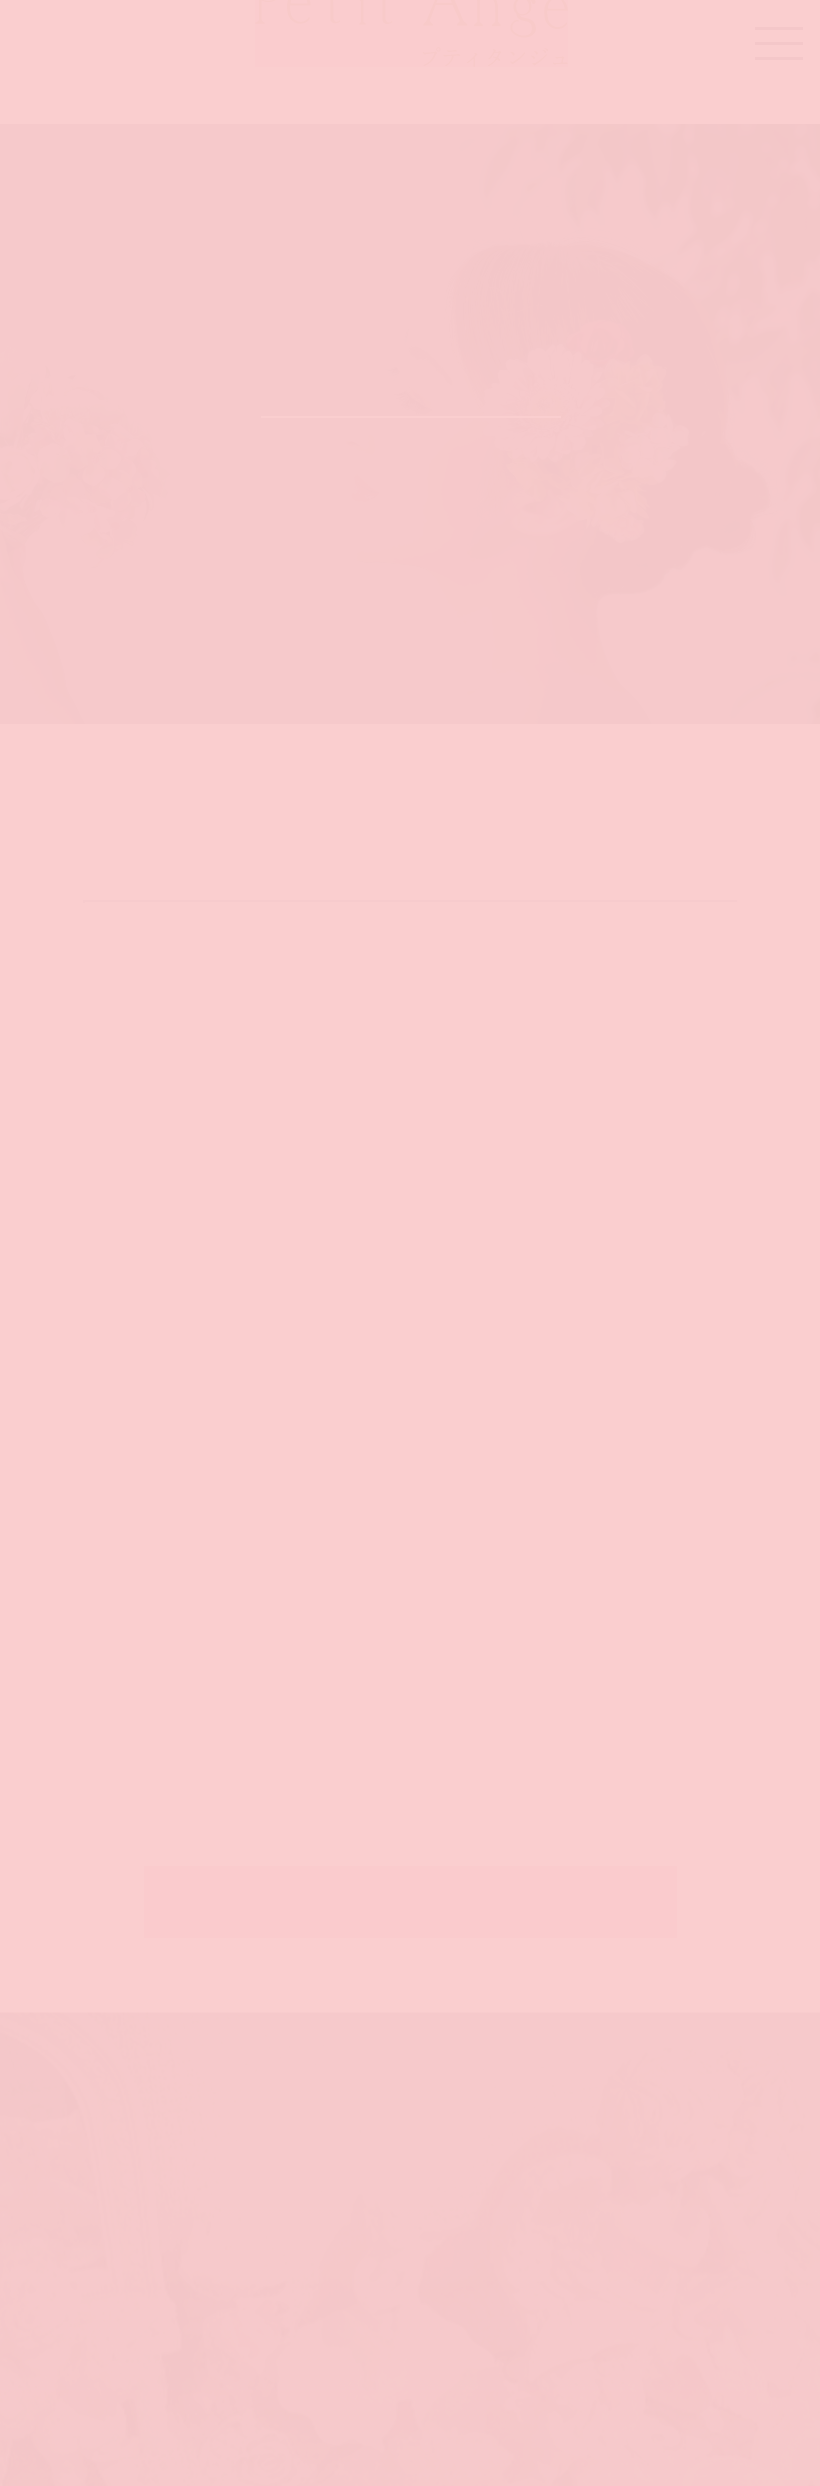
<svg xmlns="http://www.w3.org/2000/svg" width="820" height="2486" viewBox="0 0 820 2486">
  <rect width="100%" height="100%" fill="rgb(250,206,207)"/>
  <image x="255" y="0" width="313" height="67" href="pic1.png"/>
  <rect x="755" y="42" width="48" height="3" fill="rgb(244,199,201)"/>
  <rect x="755" y="27" width="48" height="3" fill="rgb(244,199,201)"/>
  <rect x="755" y="57" width="48" height="3" fill="rgb(244,199,201)"/>
  <image x="0" y="124" width="820" height="600" href="pic2.png"/>
  <rect x="261" y="416" width="300" height="2" fill="rgb(250,206,207)"/>
  <rect x="83" y="900" width="655" height="2" fill="rgb(247,203,205)"/>
  <rect x="737" y="900" width="1" height="3" fill="rgb(250,205,207)"/>
  <rect x="83" y="900" width="2" height="3" fill="rgb(247,203,205)"/>
  <rect x="144" y="1866" width="533" height="72" fill="rgb(250,203,205)"/>
  <image x="0" y="2012" width="820" height="474" href="pic3.png"/>
</svg>
